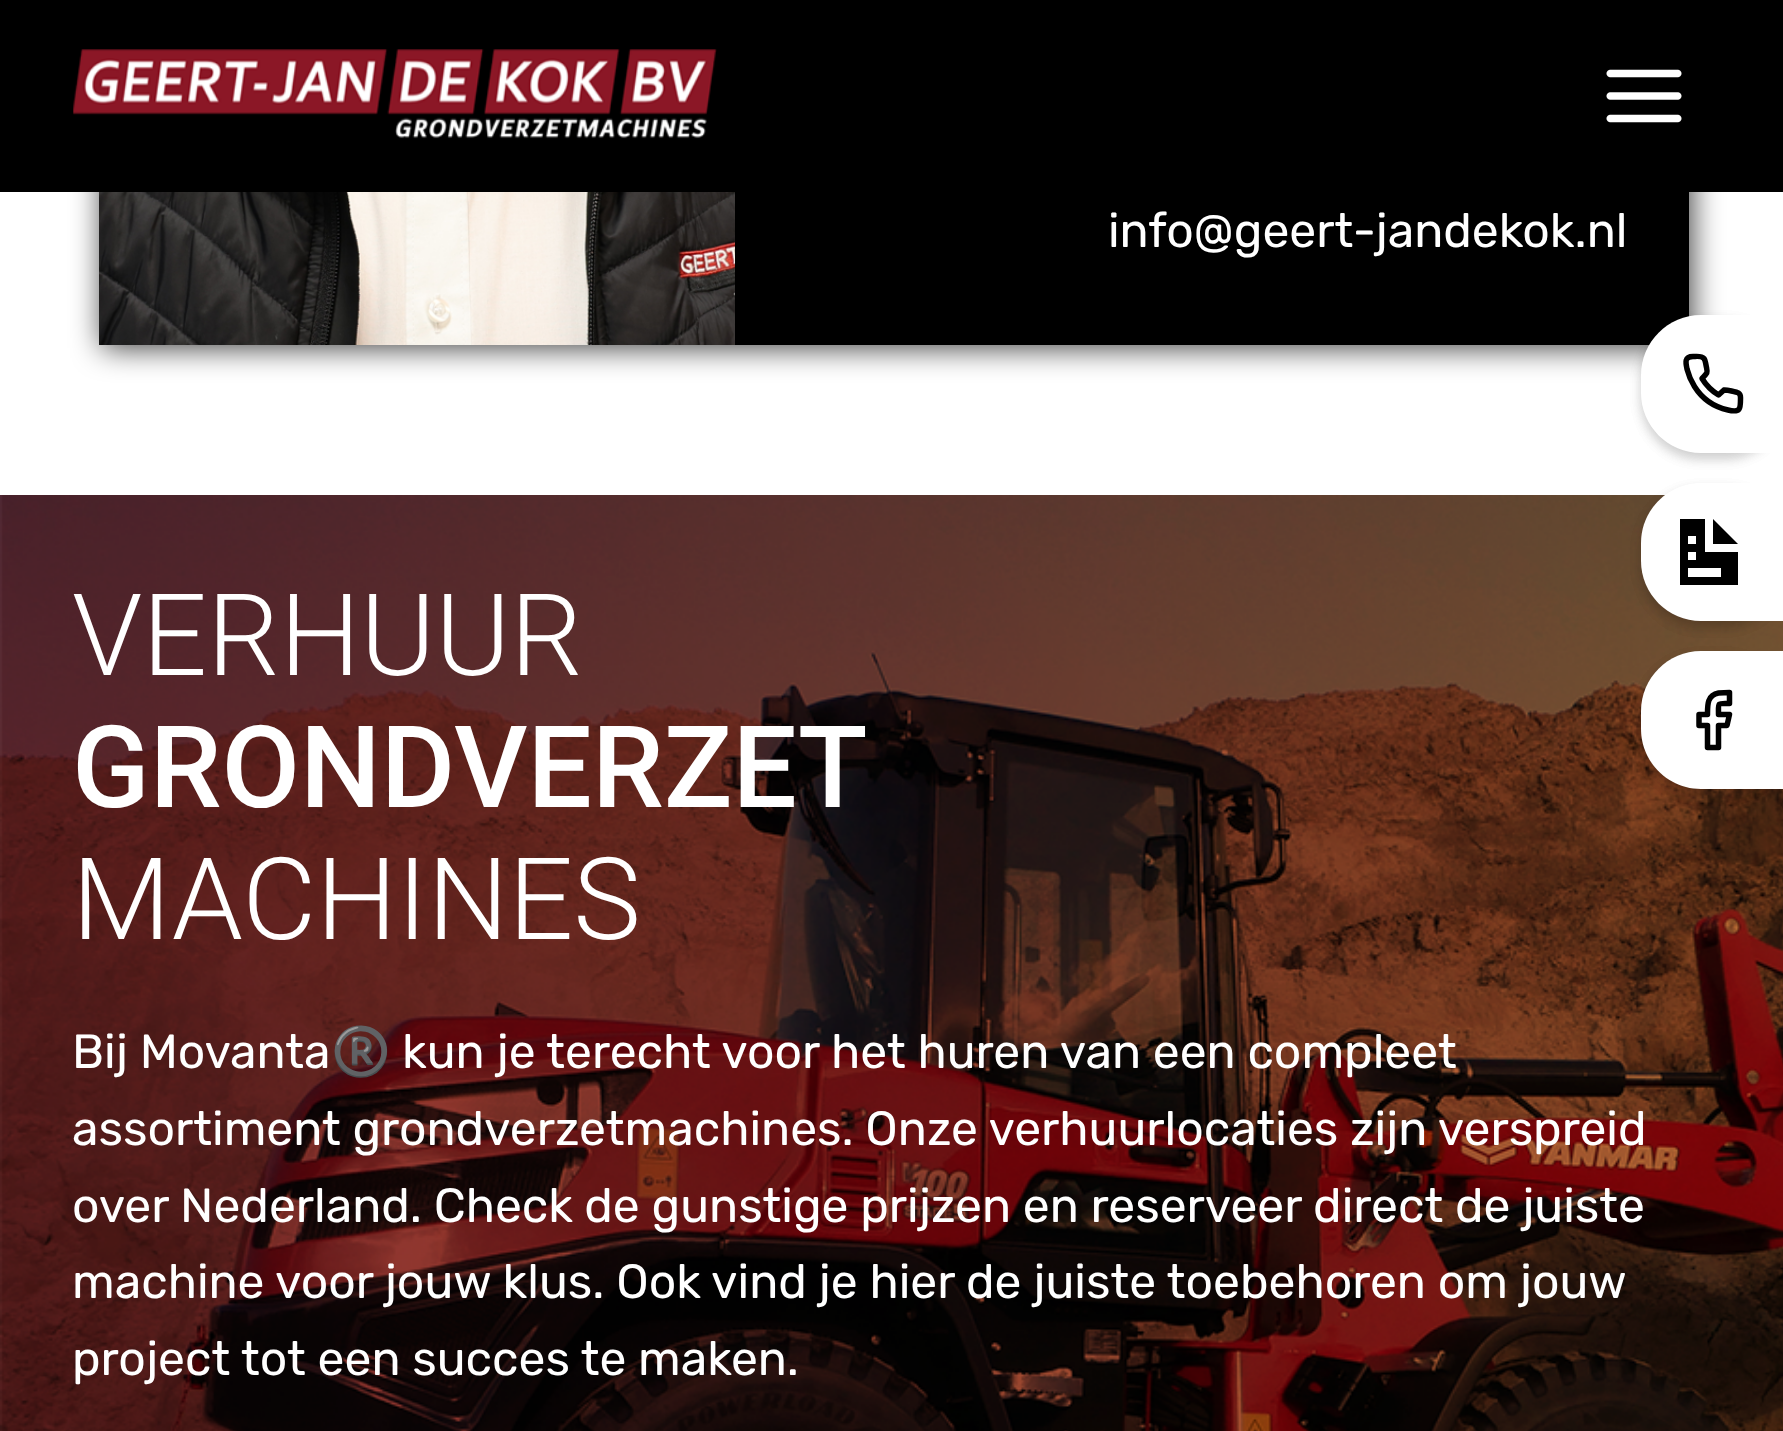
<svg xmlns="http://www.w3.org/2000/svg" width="1783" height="1431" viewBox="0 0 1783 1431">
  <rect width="100%" height="100%" fill="rgb(255,255,255)"/>
  <rect x="102" y="-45" width="1590" height="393" fill="rgba(0,0,0,0.75)" filter="blur(15px)"/>
  <rect x="0" y="0" width="1783" height="192" fill="rgb(0,0,0)"/>
  <image x="73" y="49" width="644" height="90" href="pic1.png"/>
  <image x="1606" y="69" width="76" height="54" href="pic2.png"/>
  <rect x="735" y="192" width="954" height="153" fill="rgb(0,0,0)"/>
  <image x="99" y="192" width="636" height="153" href="pic3.png"/>
  <text x="1108" y="247" font-family="Rubik" font-size="48" fill="rgb(255,255,255)">info@geert-jandekok.nl</text>
  <image x="0" y="495" width="1783" height="936" href="pic4.png"/>
  <text x="72" y="675" font-family="Roboto" font-size="114" font-weight="300" fill="rgb(255,255,255)">VERHUUR</text>
  <text x="72" y="807" font-family="Roboto" font-size="114" font-weight="500" fill="rgb(255,255,255)">GRONDVERZET</text>
  <text x="72" y="939" font-family="Roboto" font-size="114" font-weight="300" fill="rgb(255,255,255)">MACHINES</text>
  <text x="72" y="1068" font-family="Rubik" font-size="48" fill="rgb(255,255,255)">Bij Movanta</text>
  <text x="331" y="1068" font-family="Noto Color Emoji" font-size="48" fill="rgb(255,255,255)">®️</text>
  <g font-family="Rubik" font-size="48" fill="rgb(255,255,255)">
    <text x="402" y="1068">kun je terecht voor het huren van een compleet</text>
    <text>
      <tspan x="72" y="1145">assortiment grondverzetmachines. Onze verhuurlocaties zijn verspreid</tspan>
      <tspan x="72" y="1222">over Nederland. Check de gunstige prijzen en reserveer direct de juiste</tspan>
      <tspan x="72" y="1298">machine voor jouw klus. Ook vind je hier de juiste toebehoren om jouw</tspan>
      <tspan x="72" y="1375">project tot een succes te maken.</tspan>
    </text>
  </g>
  <rect x="1641" y="321" width="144" height="138" rx="60" fill="rgba(0,0,0,0.1)" filter="blur(6px)"/>
  <rect x="1641" y="489" width="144" height="138" rx="60" fill="rgba(0,0,0,0.1)" filter="blur(6px)"/>
  <rect x="1641" y="657" width="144" height="138" rx="60" fill="rgba(0,0,0,0.1)" filter="blur(6px)"/>
  <rect x="1641" y="321" width="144" height="138" rx="60" fill="rgba(0,0,0,0.1)" filter="blur(6px)"/>
  <path d="M1701 315H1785V453H1701C1668 453 1641 426 1641 393V375C1641 342 1668 315 1701 315Z" fill="rgb(255,255,255)"/>
  <path d="M1740.5 397.5C1740.5 408.5 1741 413 1728 410C1714.5 407 1702 398.5 1694.5 386.5C1691 381 1688.5 375 1687 369C1685.5 362 1684.5 356.5 1693 356.5C1696.5 356.5 1701.5 355.5 1704 358.5C1705.5 360.5 1705.5 363 1706 365C1707.5 373 1708.5 372 1702 378.5C1706 385 1712 391 1718.5 395L1724 390C1726 389.5 1737 392 1738.5 393C1740 394 1740.5 396 1740.5 397.5Z" fill="none" stroke="rgb(0,0,0)" stroke-width="5.5" stroke-linecap="round" stroke-linejoin="round"/>
  <rect x="1641" y="489" width="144" height="138" rx="60" fill="rgba(0,0,0,0.1)" filter="blur(6px)"/>
  <path d="M1701 483H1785V621H1701C1668 621 1641 594 1641 561V543C1641 510 1668 483 1701 483Z" fill="rgb(255,255,255)"/>
  <path d="M1680 519V585H1738V552H1705V519ZM1713 519V544H1738ZM1688 536H1696V544H1688ZM1688 552H1696V560H1688ZM1688 568H1721V577H1688Z" fill="rgb(0,0,0)"/>
  <rect x="1641" y="657" width="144" height="138" rx="60" fill="rgba(0,0,0,0.1)" filter="blur(6px)"/>
  <path d="M1701 651H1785V789H1701C1668 789 1641 762 1641 729V711C1641 678 1668 651 1701 651Z" fill="rgb(255,255,255)"/>
  <path d="M1729.5 692.5L1718.5 693C1707 695 1707.5 705.5 1707.5 714.5H1699V725.5H1707.5V747.5H1718.5V725.5H1727L1729.5 714.5H1718.5C1718.5 702 1717 703.5 1729.5 703.5Z" fill="none" stroke="rgb(0,0,0)" stroke-width="5.5" stroke-linecap="round" stroke-linejoin="round"/>
</svg>
